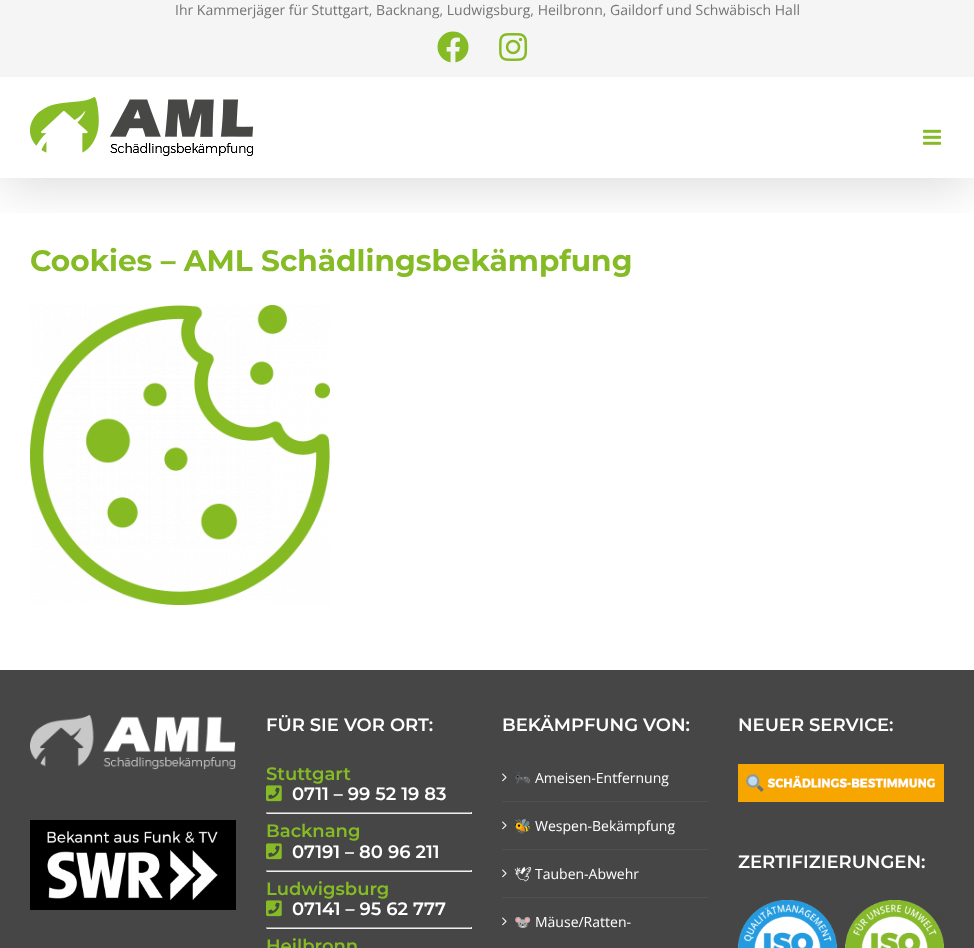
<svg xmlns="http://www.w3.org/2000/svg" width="974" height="948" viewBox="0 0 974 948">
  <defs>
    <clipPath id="clip1"><rect x="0" y="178" width="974" height="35"/></clipPath>
  </defs>
  <rect width="100%" height="100%" fill="rgb(255,255,255)"/>
  <g clip-path="url(#clip1)">
    <rect x="2" y="12" width="970" height="174" fill="rgba(0,0,0,0.14)" filter="blur(25px)"/>
  </g>
  <rect x="0" y="0" width="974" height="77" fill="rgb(245,245,245)"/>
  <text x="175" y="15" font-family="Open Sans" font-size="14" fill="rgb(116,116,116)">Ihr Kammerjäger für Stuttgart, Backnang, Ludwigsburg, Heilbronn, Gaildorf und Schwäbisch Hall</text>
  <image x="437" y="31" width="32" height="32" href="pic1.png"/>
  <image x="499" y="33" width="29" height="28" href="pic2.png"/>
  <image x="30" y="97" width="224" height="59" href="pic3.png"/>
  <image x="923" y="129" width="18" height="16" href="pic4.png"/>
  <text x="30" y="271" font-family="Montserrat" font-size="29.6" font-weight="bold" fill="rgb(133,187,36)">Cookies – AML Schädlingsbekämpfung</text>
  <image x="30" y="305" width="300" height="300" href="pic5.png"/>
  <rect x="0" y="670" width="974" height="278" fill="rgb(70,70,70)"/>
  <image x="30" y="715" width="206" height="55" href="pic6.png"/>
  <image x="30" y="820" width="206" height="90" href="pic7.png"/>
  <text x="266" y="731" font-family="Montserrat" font-size="18" font-weight="600" fill="rgb(255,255,255)">FÜR SIE VOR ORT:</text>
  <text x="266" y="780" font-family="Montserrat" font-size="18" font-weight="600" fill="rgb(133,187,36)">Stuttgart</text>
  <image x="266" y="785" width="16" height="17" href="pic8.png"/>
  <text x="292" y="800" font-family="Montserrat" font-size="18" font-weight="600" fill="rgb(255,255,255)">0711 – 99 52 19 83</text>
  <rect x="266" y="812" width="206" height="1" fill="rgb(159,159,159)"/>
  <rect x="471" y="812" width="1" height="2" fill="rgb(238,238,238)"/>
  <rect x="266" y="813" width="206" height="1" fill="rgb(238,238,238)"/>
  <rect x="266" y="812" width="1" height="2" fill="rgb(159,159,159)"/>
  <text x="266" y="837" font-family="Montserrat" font-size="18" font-weight="600" fill="rgb(133,187,36)">Backnang</text>
  <image x="266" y="843" width="16" height="17" href="pic8.png"/>
  <text x="292" y="858" font-family="Montserrat" font-size="18" font-weight="600" fill="rgb(255,255,255)">07191 – 80 96 211</text>
  <rect x="266" y="870" width="206" height="1" fill="rgb(159,159,159)"/>
  <rect x="471" y="870" width="1" height="2" fill="rgb(238,238,238)"/>
  <rect x="266" y="871" width="206" height="1" fill="rgb(238,238,238)"/>
  <rect x="266" y="870" width="1" height="2" fill="rgb(159,159,159)"/>
  <text x="266" y="895" font-family="Montserrat" font-size="18" font-weight="600" fill="rgb(133,187,36)">Ludwigsburg</text>
  <image x="266" y="900" width="16" height="17" href="pic8.png"/>
  <text x="292" y="915" font-family="Montserrat" font-size="18" font-weight="600" fill="rgb(255,255,255)">07141 – 95 62 777</text>
  <rect x="266" y="927" width="206" height="1" fill="rgb(159,159,159)"/>
  <rect x="471" y="927" width="1" height="2" fill="rgb(238,238,238)"/>
  <rect x="266" y="928" width="206" height="1" fill="rgb(238,238,238)"/>
  <rect x="266" y="927" width="1" height="2" fill="rgb(159,159,159)"/>
  <text x="266" y="952" font-family="Montserrat" font-size="18" font-weight="600" fill="rgb(133,187,36)">Heilbronn</text>
  <text x="502" y="731" font-family="Montserrat" font-size="18" font-weight="600" fill="rgb(255,255,255)">BEKÄMPFUNG VON:</text>
  <rect x="502" y="801" width="206" height="1" fill="rgb(80,81,82)"/>
  <image x="502" y="773" width="5" height="9" href="pic9.png"/>
  <text x="514" y="783" font-family="Noto Color Emoji" font-size="14" fill="rgb(255,255,255)">🐜</text>
  <text x="535" y="783" font-family="Open Sans" font-size="14" fill="rgb(255,255,255)">Ameisen-Entfernung</text>
  <rect x="502" y="849" width="206" height="1" fill="rgb(80,81,82)"/>
  <image x="502" y="821" width="5" height="9" href="pic9.png"/>
  <text x="514" y="831" font-family="Noto Color Emoji" font-size="14" fill="rgb(255,255,255)">🐝</text>
  <text x="535" y="831" font-family="Open Sans" font-size="14" fill="rgb(255,255,255)">Wespen-Bekämpfung</text>
  <rect x="502" y="897" width="206" height="1" fill="rgb(80,81,82)"/>
  <image x="502" y="869" width="5" height="9" href="pic9.png"/>
  <text x="514" y="879" font-family="Noto Emoji" font-size="14" fill="rgb(255,255,255)">🕊</text>
  <text x="535" y="879" font-family="Open Sans" font-size="14" fill="rgb(255,255,255)">Tauben-Abwehr</text>
  <image x="502" y="917" width="5" height="9" href="pic9.png"/>
  <text x="514" y="927" font-family="Noto Color Emoji" font-size="14" fill="rgb(255,255,255)">🐭</text>
  <text x="535" y="927" font-family="Open Sans" font-size="14" fill="rgb(255,255,255)">Mäuse/Ratten-</text>
  <text x="738" y="731" font-family="Montserrat" font-size="18" font-weight="600" fill="rgb(255,255,255)">NEUER SERVICE:</text>
  <image x="738" y="764" width="206" height="38" href="pic10.png"/>
  <text x="738" y="868" font-family="Montserrat" font-size="18" font-weight="600" fill="rgb(255,255,255)">ZERTIFIZIERUNGEN:</text>
  <image x="738" y="900" width="206" height="48" href="pic11.png"/>
</svg>
